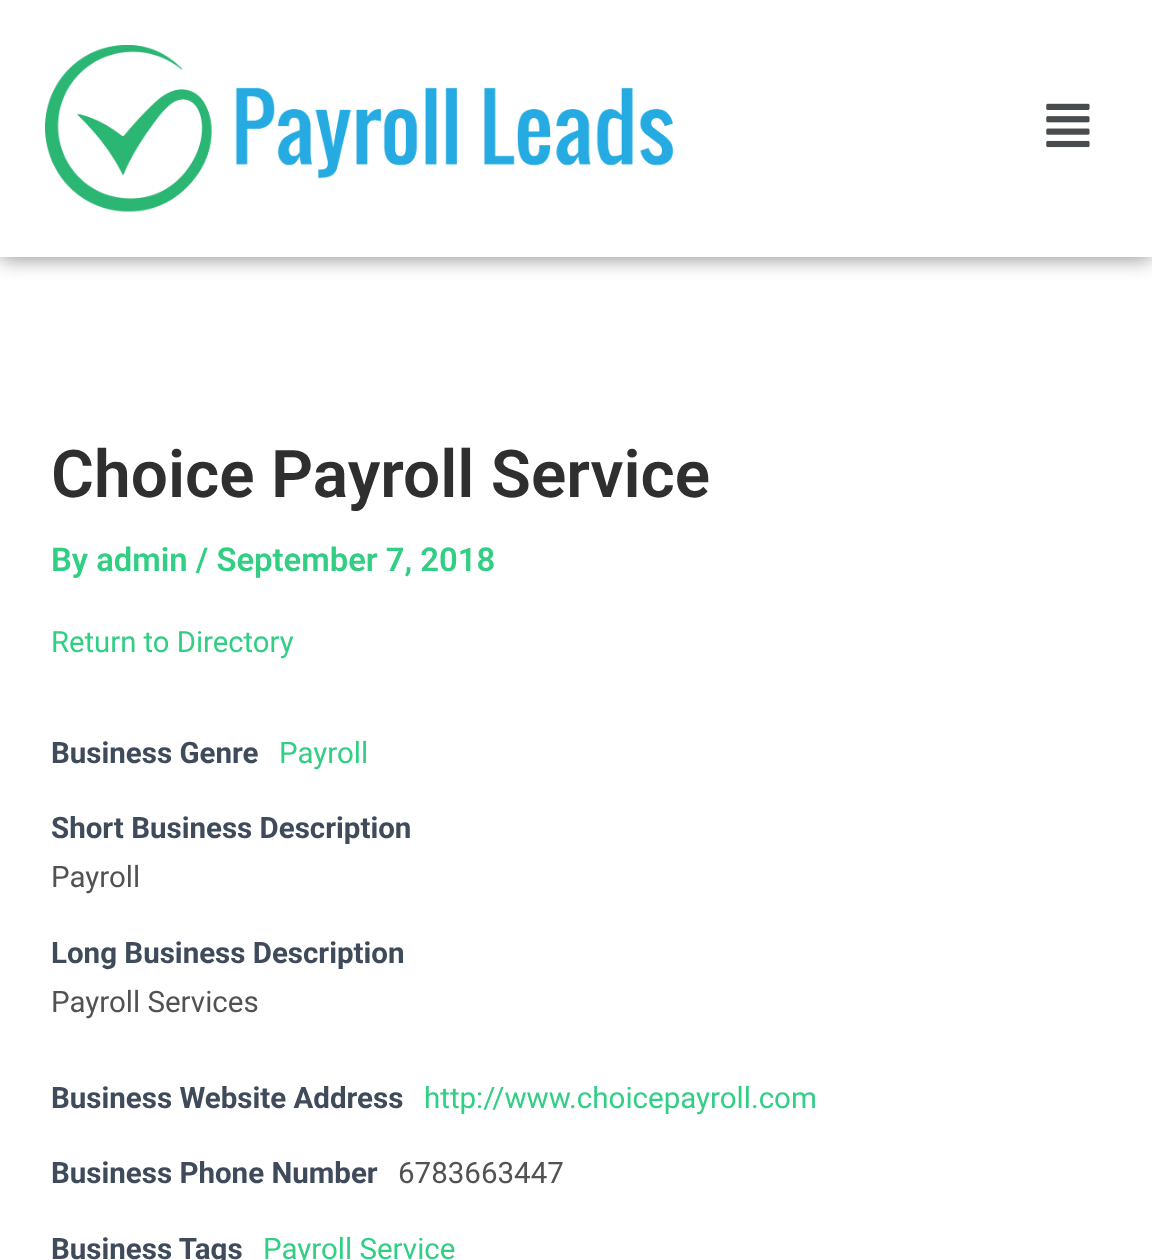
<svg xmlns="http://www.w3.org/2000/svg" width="1152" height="1260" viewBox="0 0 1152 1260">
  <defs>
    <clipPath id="clip1"><path d="M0 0H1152V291H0ZM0 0H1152V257H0Z" clip-rule="evenodd"/></clipPath>
  </defs>
  <rect width="100%" height="100%" fill="rgb(255,255,255)"/>
  <g clip-path="url(#clip1)">
    <rect x="0" y="0" width="1152" height="257" fill="rgba(0,0,0,0.5)" filter="blur(11px)"/>
  </g>
  <image x="45" y="45" width="628" height="167" href="pic1.png"/>
  <image x="1046" y="103" width="44" height="45" href="pic2.png"/>
  <text x="51" y="497" font-family="Roboto" font-size="65.75" font-weight="600" fill="rgb(47,47,47)">Choice Payroll Service</text>
  <text x="51" y="571" font-family="Roboto" font-size="32.8" font-weight="600" fill="rgb(49,206,132)">By admin / September 7, 2018</text>
  <text x="51" y="652" font-family="Roboto" font-size="29.25" fill="rgb(49,206,132)">Return to Directory</text>
  <text x="51" y="763" font-family="Roboto" font-size="29.5" font-weight="bold" fill="rgb(63,75,91)">Business Genre</text>
  <text x="279" y="763" font-family="Roboto" font-size="29.5" fill="rgb(49,206,132)">Payroll</text>
  <text x="51" y="838" font-family="Roboto" font-size="29.5" font-weight="bold" fill="rgb(63,75,91)">Short Business Description</text>
  <text x="51" y="887" font-family="Roboto" font-size="29.5" fill="rgb(82,82,82)">Payroll</text>
  <text x="51" y="963" font-family="Roboto" font-size="29.5" font-weight="bold" fill="rgb(63,75,91)">Long Business Description</text>
  <text x="51" y="1012" font-family="Roboto" font-size="29.5" fill="rgb(82,82,82)">Payroll Services</text>
  <text x="51" y="1108" font-family="Roboto" font-size="29.5" font-weight="bold" fill="rgb(63,75,91)">Business Website Address</text>
  <text x="424" y="1108" font-family="Roboto" font-size="29.5" fill="rgb(49,206,132)">http://www.choicepayroll.com</text>
  <text x="51" y="1183" font-family="Roboto" font-size="29.5" font-weight="bold" fill="rgb(63,75,91)">Business Phone Number</text>
  <text x="398" y="1183" font-family="Roboto" font-size="29.5" fill="rgb(82,82,82)">6783663447</text>
  <text x="51" y="1259" font-family="Roboto" font-size="29.5" font-weight="bold" fill="rgb(63,75,91)">Business Tags</text>
  <text x="263" y="1259" font-family="Roboto" font-size="29.5" fill="rgb(49,206,132)">Payroll Service</text>
</svg>
